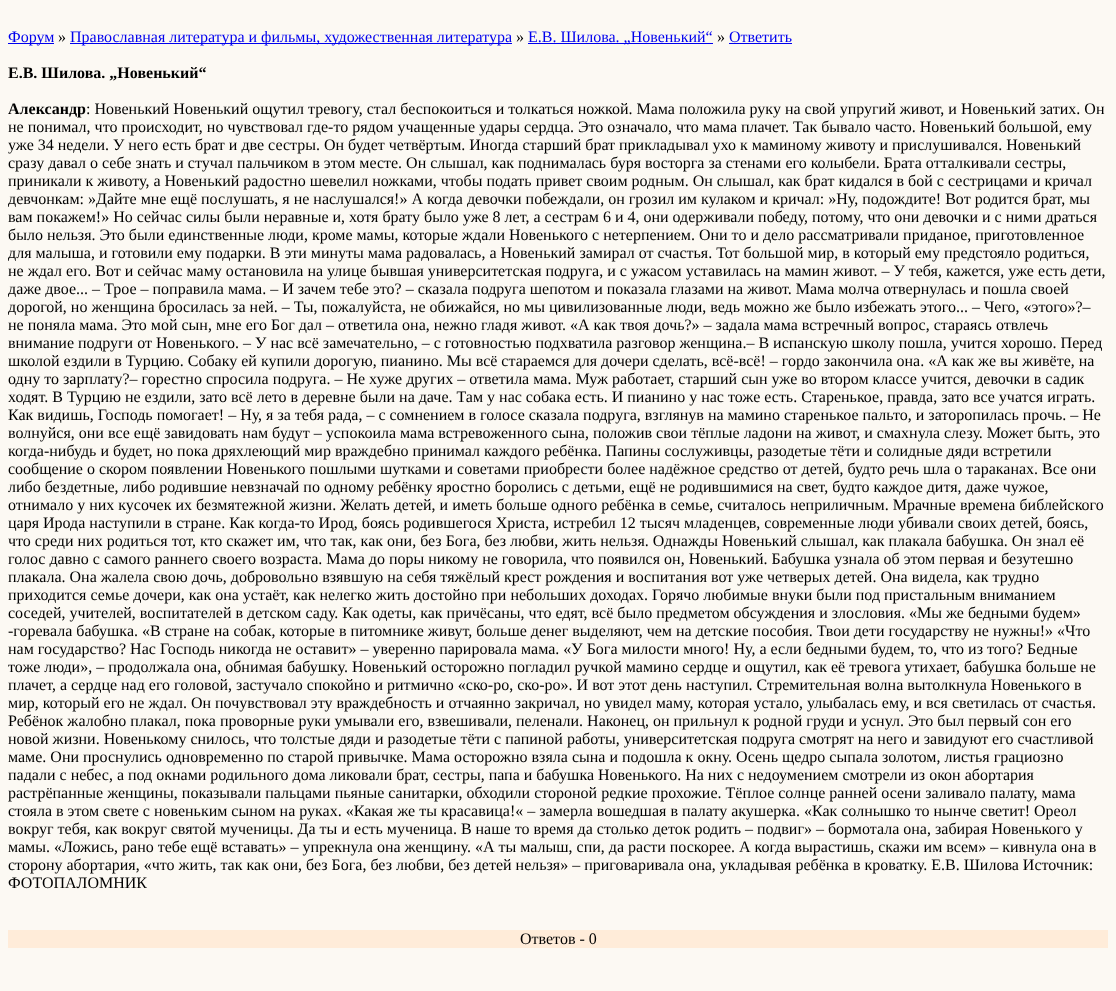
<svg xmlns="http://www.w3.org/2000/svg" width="1116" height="991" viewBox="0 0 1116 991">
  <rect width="100%" height="100%" fill="rgb(252,249,243)"/>
  <rect x="8" y="43" width="46" height="1" fill="rgb(0,0,238)"/>
  <text x="8" y="42" font-family="Liberation Serif" font-size="16" fill="rgb(0,0,238)">Форум</text>
  <text x="58" y="42" font-family="Liberation Serif" font-size="16" fill="rgb(0,0,0)">»</text>
  <rect x="70" y="43" width="442" height="1" fill="rgb(0,0,238)"/>
  <text x="70" y="42" font-family="Liberation Serif" font-size="16" fill="rgb(0,0,238)">Православная литература и фильмы, художественная литература</text>
  <text x="516" y="42" font-family="Liberation Serif" font-size="16" fill="rgb(0,0,0)">»</text>
  <rect x="528" y="43" width="185" height="1" fill="rgb(0,0,238)"/>
  <text x="528" y="42" font-family="Liberation Serif" font-size="16" fill="rgb(0,0,238)">Е.В. Шилова. „Новенький“</text>
  <text x="717" y="42" font-family="Liberation Serif" font-size="16" fill="rgb(0,0,0)">»</text>
  <text x="729" y="42" font-family="Liberation Serif" font-size="16" fill="rgb(0,0,238)">Ответить</text>
  <rect x="729" y="43" width="63" height="1" fill="rgb(0,0,238)"/>
  <g font-family="Liberation Serif" font-size="16" font-weight="bold" fill="rgb(0,0,0)">
    <text x="8" y="78">Е.В. Шилова. „Новенький“</text>
    <text x="8" y="114">Александр</text>
  </g>
  <g font-family="Liberation Serif" font-size="16" fill="rgb(0,0,0)">
    <text x="86" y="114">: Новенький Новенький ощутил тревогу, стал беспокоиться и толкаться ножкой. Мама положила руку на свой упругий живот, и Новенький затих. Он</text>
    <text>
      <tspan x="8" y="132">не понимал, что происходит, но чувствовал где-то рядом учащенные удары сердца. Это означало, что мама плачет. Так бывало часто. Новенький большой, ему</tspan>
      <tspan x="8" y="150">уже 34 недели. У него есть брат и две сестры. Он будет четвёртым. Иногда старший брат прикладывал ухо к маминому животу и прислушивался. Новенький</tspan>
      <tspan x="8" y="168">сразу давал о себе знать и стучал пальчиком в этом месте. Он слышал, как поднималась буря восторга за стенами его колыбели. Брата отталкивали сестры,</tspan>
      <tspan x="8" y="186">приникали к животу, а Новенький радостно шевелил ножками, чтобы подать привет своим родным. Он слышал, как брат кидался в бой с сестрицами и кричал</tspan>
      <tspan x="8" y="204">девчонкам: »Дайте мне ещё послушать, я не наслушался!» А когда девочки побеждали, он грозил им кулаком и кричал: »Ну, подождите! Вот родится брат, мы</tspan>
      <tspan x="8" y="222">вам покажем!» Но сейчас силы были неравные и, хотя брату было уже 8 лет, а сестрам 6 и 4, они одерживали победу, потому, что они девочки и с ними драться</tspan>
      <tspan x="8" y="240">было нельзя. Это были единственные люди, кроме мамы, которые ждали Новенького с нетерпением. Они то и дело рассматривали приданое, приготовленное</tspan>
      <tspan x="8" y="258">для малыша, и готовили ему подарки. В эти минуты мама радовалась, а Новенький замирал от счастья. Тот большой мир, в который ему предстояло родиться,</tspan>
      <tspan x="8" y="276">не ждал его. Вот и сейчас маму остановила на улице бывшая университетская подруга, и с ужасом уставилась на мамин живот. – У тебя, кажется, уже есть дети,</tspan>
      <tspan x="8" y="294">даже двое... – Трое – поправила мама. – И зачем тебе это? – сказала подруга шепотом и показала глазами на живот. Мама молча отвернулась и пошла своей</tspan>
      <tspan x="8" y="312">дорогой, но женщина бросилась за ней. – Ты, пожалуйста, не обижайся, но мы цивилизованные люди, ведь можно же было избежать этого... – Чего, «этого»?–</tspan>
      <tspan x="8" y="330">не поняла мама. Это мой сын, мне его Бог дал – ответила она, нежно гладя живот. «А как твоя дочь?» – задала мама встречный вопрос, стараясь отвлечь</tspan>
      <tspan x="8" y="348">внимание подруги от Новенького. – У нас всё замечательно, – с готовностью подхватила разговор женщина.– В испанскую школу пошла, учится хорошо. Перед</tspan>
      <tspan x="8" y="366">школой ездили в Турцию. Собаку ей купили дорогую, пианино. Мы всё стараемся для дочери сделать, всё-всё! – гордо закончила она. «А как же вы живёте, на</tspan>
      <tspan x="8" y="384">одну то зарплату?– горестно спросила подруга. – Не хуже других – ответила мама. Муж работает, старший сын уже во втором классе учится, девочки в садик</tspan>
      <tspan x="8" y="402">ходят. В Турцию не ездили, зато всё лето в деревне были на даче. Там у нас собака есть. И пианино у нас тоже есть. Старенькое, правда, зато все учатся играть.</tspan>
      <tspan x="8" y="420">Как видишь, Господь помогает! – Ну, я за тебя рада, – с сомнением в голосе сказала подруга, взглянув на мамино старенькое пальто, и заторопилась прочь. – Не</tspan>
      <tspan x="8" y="438">волнуйся, они все ещё завидовать нам будут – успокоила мама встревоженного сына, положив свои тёплые ладони на живот, и смахнула слезу. Может быть, это</tspan>
      <tspan x="8" y="456">когда-нибудь и будет, но пока дряхлеющий мир враждебно принимал каждого ребёнка. Папины сослуживцы, разодетые тёти и солидные дяди встретили</tspan>
      <tspan x="8" y="474">сообщение о скором появлении Новенького пошлыми шутками и советами приобрести более надёжное средство от детей, будто речь шла о тараканах. Все они</tspan>
      <tspan x="8" y="492">либо бездетные, либо родившие невзначай по одному ребёнку яростно боролись с детьми, ещё не родившимися на свет, будто каждое дитя, даже чужое,</tspan>
      <tspan x="8" y="510">отнимало у них кусочек их безмятежной жизни. Желать детей, и иметь больше одного ребёнка в семье, считалось неприличным. Мрачные времена библейского</tspan>
      <tspan x="8" y="528">царя Ирода наступили в стране. Как когда-то Ирод, боясь родившегося Христа, истребил 12 тысяч младенцев, современные люди убивали своих детей, боясь,</tspan>
      <tspan x="8" y="546">что среди них родиться тот, кто скажет им, что так, как они, без Бога, без любви, жить нельзя. Однажды Новенький слышал, как плакала бабушка. Он знал её</tspan>
      <tspan x="8" y="564">голос давно с самого раннего своего возраста. Мама до поры никому не говорила, что появился он, Новенький. Бабушка узнала об этом первая и безутешно</tspan>
      <tspan x="8" y="582">плакала. Она жалела свою дочь, добровольно взявшую на себя тяжёлый крест рождения и воспитания вот уже четверых детей. Она видела, как трудно</tspan>
      <tspan x="8" y="600">приходится семье дочери, как она устаёт, как нелегко жить достойно при небольших доходах. Горячо любимые внуки были под пристальным вниманием</tspan>
      <tspan x="8" y="618">соседей, учителей, воспитателей в детском саду. Как одеты, как причёсаны, что едят, всё было предметом обсуждения и злословия. «Мы же бедными будем»</tspan>
      <tspan x="8" y="636">-горевала бабушка. «В стране на собак, которые в питомнике живут, больше денег выделяют, чем на детские пособия. Твои дети государству не нужны!» «Что</tspan>
      <tspan x="8" y="654">нам государство? Нас Господь никогда не оставит» – уверенно парировала мама. «У Бога милости много! Ну, а если бедными будем, то, что из того? Бедные</tspan>
      <tspan x="8" y="672">тоже люди», – продолжала она, обнимая бабушку. Новенький осторожно погладил ручкой мамино сердце и ощутил, как её тревога утихает, бабушка больше не</tspan>
      <tspan x="8" y="690">плачет, а сердце над его головой, застучало спокойно и ритмично «ско-ро, ско-ро». И вот этот день наступил. Стремительная волна вытолкнула Новенького в</tspan>
      <tspan x="8" y="708">мир, который его не ждал. Он почувствовал эту враждебность и отчаянно закричал, но увидел маму, которая устало, улыбалась ему, и вся светилась от счастья.</tspan>
      <tspan x="8" y="726">Ребёнок жалобно плакал, пока проворные руки умывали его, взвешивали, пеленали. Наконец, он прильнул к родной груди и уснул. Это был первый сон его</tspan>
      <tspan x="8" y="744">новой жизни. Новенькому снилось, что толстые дяди и разодетые тёти с папиной работы, университетская подруга смотрят на него и завидуют его счастливой</tspan>
      <tspan x="8" y="762">маме. Они проснулись одновременно по старой привычке. Мама осторожно взяла сына и подошла к окну. Осень щедро сыпала золотом, листья грациозно</tspan>
      <tspan x="8" y="780">падали с небес, а под окнами родильного дома ликовали брат, сестры, папа и бабушка Новенького. На них с недоумением смотрели из окон абортария</tspan>
      <tspan x="8" y="798">растрёпанные женщины, показывали пальцами пьяные санитарки, обходили стороной редкие прохожие. Тёплое солнце ранней осени заливало палату, мама</tspan>
      <tspan x="8" y="816">стояла в этом свете с новеньким сыном на руках. «Какая же ты красавица!« – замерла вошедшая в палату акушерка. «Как солнышко то нынче светит! Ореол</tspan>
      <tspan x="8" y="834">вокруг тебя, как вокруг святой мученицы. Да ты и есть мученица. В наше то время да столько деток родить – подвиг» – бормотала она, забирая Новенького у</tspan>
      <tspan x="8" y="852">мамы. «Ложись, рано тебе ещё вставать» – упрекнула она женщину. «А ты малыш, спи, да расти поскорее. А когда вырастишь, скажи им всем» – кивнула она в</tspan>
      <tspan x="8" y="870">сторону абортария, «что жить, так как они, без Бога, без любви, без детей нельзя» – приговаривала она, укладывая ребёнка в кроватку. Е.В. Шилова Источник:</tspan>
      <tspan x="8" y="888">ФОТОПАЛОМНИК</tspan>
    </text>
  </g>
  <rect x="8" y="930" width="1100" height="18" fill="rgb(255,236,217)"/>
  <text x="520" y="944" font-family="Liberation Serif" font-size="16" fill="rgb(0,0,0)">Ответов - 0</text>
</svg>
